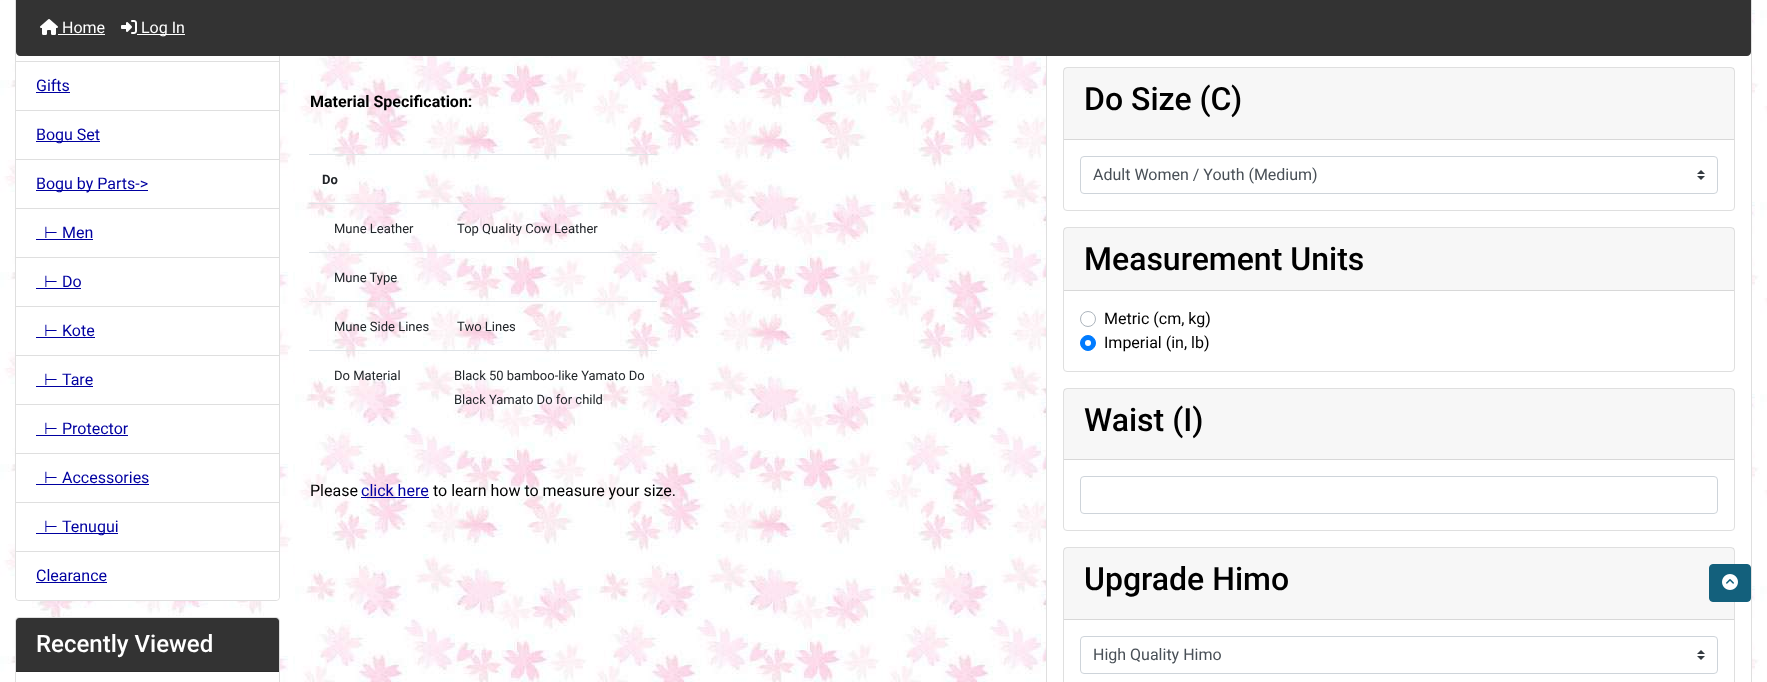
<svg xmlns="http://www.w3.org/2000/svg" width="1767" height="682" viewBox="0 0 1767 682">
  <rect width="100%" height="100%" fill="rgb(255,255,255)"/>
  <image x="0" y="0" width="295" height="682" href="pic3.png"/>
  <rect x="15.5" y="-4.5" width="264" height="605" rx="3.5" fill="rgb(255,255,255)" stroke="rgb(223,223,223)"/>
  <image x="295" y="0" width="1472" height="682" href="pic4.png"/>
  <rect x="1047" y="52" width="704" height="630" fill="rgb(255,255,255)"/>
  <rect x="1046.5" y="-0.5" width="705" height="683" fill="none" stroke="rgb(223,223,223)"/>
  <path d="M16 0H1751V52C1751 54 1749 56 1747 56H20C18 56 16 54 16 52Z" fill="rgb(51,51,51)"/>
  <image x="40" y="19" width="18" height="16" href="pic1.png"/>
  <text x="62" y="33" font-family="Roboto" font-size="16" fill="rgb(255,255,255)">Home</text>
  <rect x="58" y="34" width="47" height="1" fill="rgb(255,255,255)"/>
  <image x="121" y="20" width="16" height="14" href="pic2.png"/>
  <rect x="137" y="34" width="48" height="1" fill="rgb(255,255,255)"/>
  <text x="141" y="33" font-family="Roboto" font-size="16" fill="rgb(255,255,255)">Log In</text>
  <rect x="16" y="61" width="263" height="1" fill="rgb(223,223,223)"/>
  <rect x="16" y="110" width="263" height="1" fill="rgb(223,223,223)"/>
  <text x="36" y="91" font-family="Roboto" font-size="16" fill="rgb(0,0,160)">Gifts</text>
  <rect x="36" y="92" width="34" height="1" fill="rgb(0,0,160)"/>
  <rect x="16" y="159" width="263" height="1" fill="rgb(223,223,223)"/>
  <rect x="36" y="141" width="64" height="1" fill="rgb(0,0,160)"/>
  <text x="36" y="140" font-family="Roboto" font-size="16" fill="rgb(0,0,160)">Bogu Set</text>
  <rect x="16" y="208" width="263" height="1" fill="rgb(223,223,223)"/>
  <rect x="36" y="190" width="112" height="1" fill="rgb(0,0,160)"/>
  <text x="36" y="189" font-family="Roboto" font-size="16" fill="rgb(0,0,160)">Bogu by Parts-&gt;</text>
  <rect x="16" y="257" width="263" height="1" fill="rgb(223,223,223)"/>
  <text x="44" y="238" font-family="DejaVu Sans" font-size="16" fill="rgb(0,0,160)">⊢</text>
  <text x="62" y="238" font-family="Roboto" font-size="16" fill="rgb(0,0,160)">Men</text>
  <rect x="36" y="239" width="57" height="1" fill="rgb(0,0,160)"/>
  <rect x="16" y="306" width="263" height="1" fill="rgb(223,223,223)"/>
  <text x="44" y="287" font-family="DejaVu Sans" font-size="16" fill="rgb(0,0,160)">⊢</text>
  <text x="62" y="287" font-family="Roboto" font-size="16" fill="rgb(0,0,160)">Do</text>
  <rect x="36" y="288" width="45" height="1" fill="rgb(0,0,160)"/>
  <rect x="16" y="355" width="263" height="1" fill="rgb(223,223,223)"/>
  <text x="44" y="336" font-family="DejaVu Sans" font-size="16" fill="rgb(0,0,160)">⊢</text>
  <text x="62" y="336" font-family="Roboto" font-size="16" fill="rgb(0,0,160)">Kote</text>
  <rect x="36" y="337" width="59" height="1" fill="rgb(0,0,160)"/>
  <rect x="16" y="404" width="263" height="1" fill="rgb(223,223,223)"/>
  <text x="44" y="385" font-family="DejaVu Sans" font-size="16" fill="rgb(0,0,160)">⊢</text>
  <text x="62" y="385" font-family="Roboto" font-size="16" fill="rgb(0,0,160)">Tare</text>
  <rect x="36" y="386" width="57" height="1" fill="rgb(0,0,160)"/>
  <rect x="16" y="453" width="263" height="1" fill="rgb(223,223,223)"/>
  <text x="44" y="434" font-family="DejaVu Sans" font-size="16" fill="rgb(0,0,160)">⊢</text>
  <text x="62" y="434" font-family="Roboto" font-size="16" fill="rgb(0,0,160)">Protector</text>
  <rect x="36" y="435" width="92" height="1" fill="rgb(0,0,160)"/>
  <rect x="16" y="502" width="263" height="1" fill="rgb(223,223,223)"/>
  <text x="44" y="483" font-family="DejaVu Sans" font-size="16" fill="rgb(0,0,160)">⊢</text>
  <text x="62" y="483" font-family="Roboto" font-size="16" fill="rgb(0,0,160)">Accessories</text>
  <rect x="36" y="484" width="113" height="1" fill="rgb(0,0,160)"/>
  <rect x="16" y="551" width="263" height="1" fill="rgb(223,223,223)"/>
  <text x="44" y="532" font-family="DejaVu Sans" font-size="16" fill="rgb(0,0,160)">⊢</text>
  <rect x="36" y="533" width="82" height="1" fill="rgb(0,0,160)"/>
  <text x="62" y="532" font-family="Roboto" font-size="16" fill="rgb(0,0,160)">Tenugui</text>
  <path d="M16 552H279V597C279 598.5 277.5 600 276 600H19C17.5 600 16 598.5 16 597Z" fill="rgb(255,255,255)"/>
  <text x="36" y="581" font-family="Roboto" font-size="16" fill="rgb(0,0,160)">Clearance</text>
  <rect x="36" y="582" width="71" height="1" fill="rgb(0,0,160)"/>
  <rect x="15.5" y="617.5" width="264" height="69" rx="3.5" fill="rgb(255,255,255)" stroke="rgb(223,223,223)"/>
  <path d="M19 618H276C277.5 618 279 619.5 279 621V672H16V621C16 619.5 17.5 618 19 618Z" fill="rgb(51,51,51)"/>
  <rect x="16" y="671" width="263" height="1" fill="rgb(45,45,45)"/>
  <text x="36" y="652" font-family="Roboto" font-size="24" font-weight="500" fill="rgb(255,255,255)">Recently Viewed</text>
  <text x="310" y="107" font-family="Roboto" font-size="16" font-weight="bold" fill="rgb(0,0,0)">Material Specification:</text>
  <rect x="309" y="154" width="348" height="1" fill="rgb(222,226,230)"/>
  <text x="322" y="184" font-family="Roboto" font-size="13" font-weight="bold" fill="rgb(33,37,41)">Do</text>
  <text x="334" y="233" font-family="Roboto" font-size="13" fill="rgb(33,37,41)">Mune Leather</text>
  <rect x="309" y="203" width="348" height="1" fill="rgb(222,226,230)"/>
  <text x="457" y="233" font-family="Roboto" font-size="13" fill="rgb(33,37,41)">Top Quality Cow Leather</text>
  <rect x="309" y="252" width="348" height="1" fill="rgb(222,226,230)"/>
  <g font-family="Roboto" font-size="13" fill="rgb(33,37,41)">
    <text x="334" y="282">Mune Type</text>
    <text x="334" y="331">Mune Side Lines</text>
  </g>
  <rect x="309" y="301" width="348" height="1" fill="rgb(222,226,230)"/>
  <g font-family="Roboto" font-size="13" fill="rgb(33,37,41)">
    <text x="457" y="331">Two Lines</text>
    <text x="334" y="380">Do Material</text>
  </g>
  <rect x="309" y="350" width="348" height="1" fill="rgb(222,226,230)"/>
  <g font-family="Roboto" font-size="13" fill="rgb(33,37,41)">
    <text>
      <tspan x="454" y="380">Black 50 bamboo-like Yamato Do</tspan>
      <tspan x="454" y="404">Black Yamato Do for child</tspan>
    </text>
  </g>
  <text x="310" y="496" font-family="Roboto" font-size="16" fill="rgb(0,0,0)">Please</text>
  <text x="361" y="496" font-family="Roboto" font-size="16" fill="rgb(0,0,160)">click here</text>
  <rect x="361" y="497" width="68" height="1" fill="rgb(0,0,160)"/>
  <text x="433" y="496" font-family="Roboto" font-size="16" fill="rgb(0,0,0)">to learn how to measure your size.</text>
  <rect x="1063.5" y="67.5" width="671" height="143" rx="3.5" fill="none" stroke="rgb(223,223,223)"/>
  <rect x="1064" y="68" width="670" height="71" fill="rgba(0,0,0,0.03)"/>
  <rect x="1064" y="139" width="670" height="1" fill="rgb(216,216,216)"/>
  <text x="1084" y="110" font-family="Roboto" font-size="32" font-weight="500" fill="rgb(0,0,0)">Do Size (C)</text>
  <image x="1697" y="170" width="8" height="10" href="pic5.png"/>
  <rect x="1080.5" y="156.5" width="637" height="37" rx="3.5" fill="none" stroke="rgb(206,212,218)"/>
  <text x="1093" y="180" font-family="Roboto" font-size="16" fill="rgb(73,80,87)">Adult Women / Youth (Medium)</text>
  <rect x="1063.5" y="227.5" width="671" height="144" rx="3.5" fill="none" stroke="rgb(223,223,223)"/>
  <rect x="1064" y="228" width="670" height="62" fill="rgba(0,0,0,0.03)"/>
  <rect x="1064" y="290" width="670" height="1" fill="rgb(216,216,216)"/>
  <text x="1084" y="270" font-family="Roboto" font-size="32" font-weight="500" fill="rgb(0,0,0)">Measurement Units</text>
  <circle cx="1088" cy="319" r="7.5" fill="none" stroke="rgb(173,181,189)"/>
  <text x="1104" y="324" font-family="Roboto" font-size="16" fill="rgb(0,0,0)">Metric (cm, kg)</text>
  <circle cx="1088" cy="343" r="7.5" fill="rgb(0,123,255)" stroke="rgb(0,123,255)"/>
  <text x="1104" y="348" font-family="Roboto" font-size="16" fill="rgb(0,0,0)">Imperial (in, lb)</text>
  <circle cx="1088" cy="343" r="3" fill="rgb(255,255,255)"/>
  <rect x="1063.5" y="388.5" width="671" height="142" rx="3.5" fill="none" stroke="rgb(223,223,223)"/>
  <rect x="1064" y="389" width="670" height="70" fill="rgba(0,0,0,0.03)"/>
  <rect x="1064" y="459" width="670" height="1" fill="rgb(216,216,216)"/>
  <text x="1084" y="431" font-family="Roboto" font-size="32" font-weight="500" fill="rgb(0,0,0)">Waist (I)</text>
  <rect x="1080.5" y="476.5" width="637" height="37" rx="3.5" fill="none" stroke="rgb(206,212,218)"/>
  <rect x="1063.5" y="547.5" width="671" height="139" rx="3.5" fill="none" stroke="rgb(223,223,223)"/>
  <rect x="1064" y="548" width="670" height="71" fill="rgba(0,0,0,0.03)"/>
  <rect x="1064" y="619" width="670" height="1" fill="rgb(216,216,216)"/>
  <text x="1084" y="590" font-family="Roboto" font-size="32" font-weight="500" fill="rgb(0,0,0)">Upgrade Himo</text>
  <image x="1697" y="650" width="8" height="10" href="pic5.png"/>
  <rect x="1080.5" y="636.5" width="637" height="37" rx="3.5" fill="none" stroke="rgb(206,212,218)"/>
  <text x="1093" y="660" font-family="Roboto" font-size="16" fill="rgb(73,80,87)">High Quality Himo</text>
  <rect x="1709.5" y="564.5" width="41" height="37" rx="3.5" fill="rgb(19,96,124)" stroke="rgb(19,96,124)"/>
  <image x="1722" y="574" width="16" height="16" href="pic6.png"/>
</svg>
